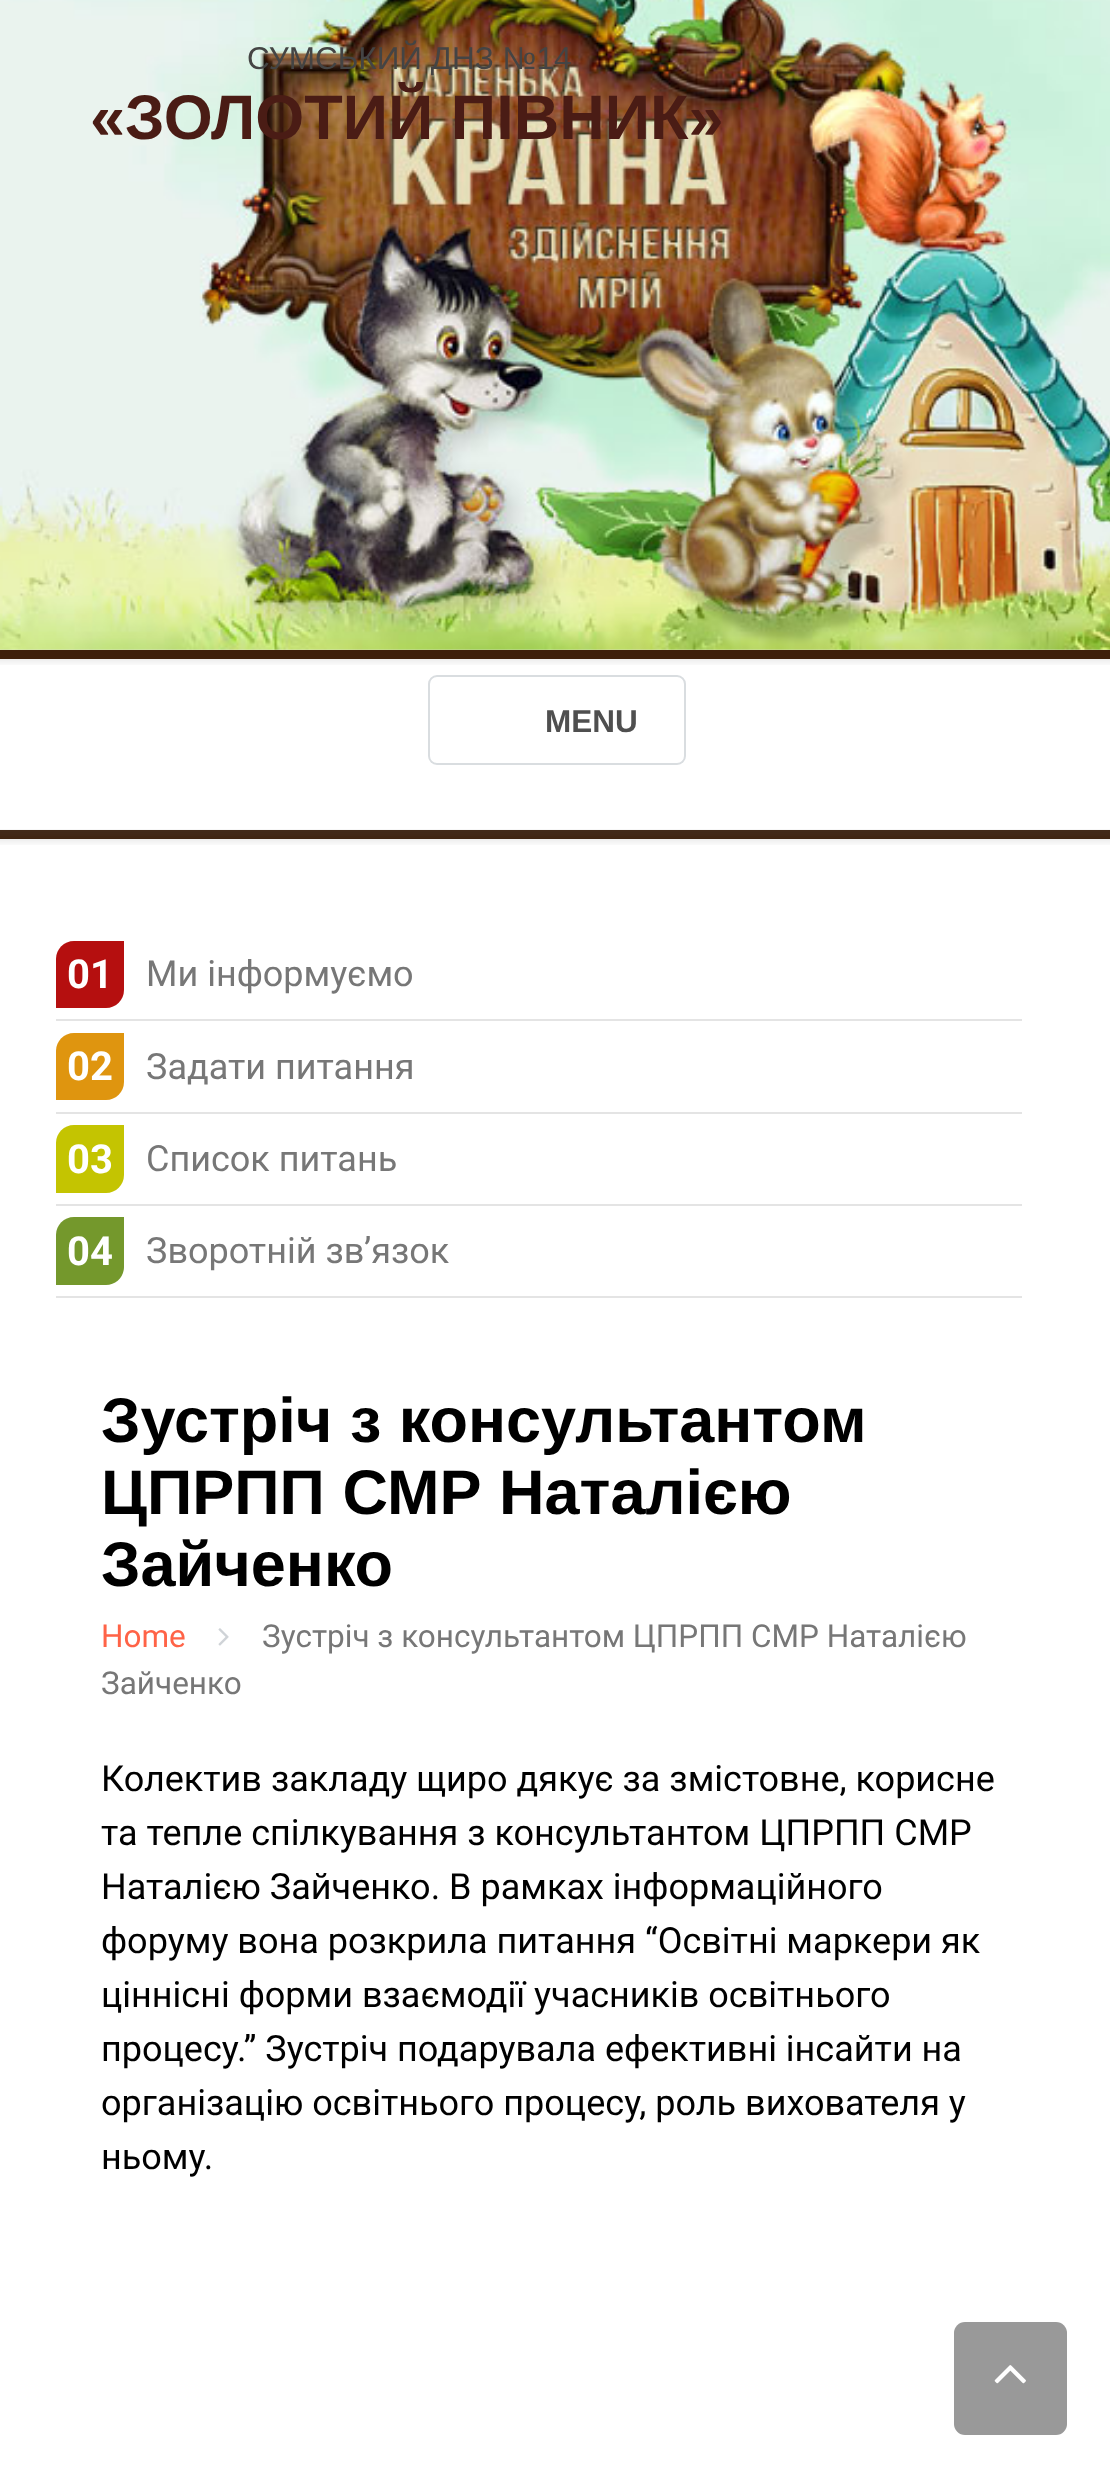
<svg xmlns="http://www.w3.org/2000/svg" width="1110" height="2478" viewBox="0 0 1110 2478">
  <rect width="100%" height="100%" fill="rgb(255,255,255)"/>
  <image x="0" y="0" width="1110" height="650" href="pic1.png"/>
  <text x="247" y="69" font-family="Liberation Sans" font-size="31.5" fill="rgb(68,68,68)">СУМСЬКИЙ ДНЗ №14</text>
  <text x="90" y="139" font-family="Liberation Sans" font-size="63" font-weight="bold" fill="rgb(74,28,21)">«ЗОЛОТИЙ ПІВНИК»</text>
  <image x="0" y="649" width="1110" height="16" href="pic2.png"/>
  <rect x="0" y="650" width="1110" height="9" fill="rgb(62,31,10)"/>
  <rect x="0" y="830" width="1110" height="9" fill="rgb(62,31,10)"/>
  <rect x="429" y="676" width="256" height="88" rx="8" fill="none" stroke="rgb(217,221,224)" stroke-width="2"/>
  <text x="545" y="732" font-family="Liberation Sans" font-size="31.5" font-weight="bold" fill="rgb(79,79,79)">MENU</text>
  <image x="0" y="829" width="1110" height="16" href="pic3.png"/>
  <rect x="56" y="1019" width="966" height="2" fill="rgb(228,228,228)"/>
  <path d="M74 941H124V990C124 1000 116 1008 106 1008H56V959C56 949 64 941 74 941Z" fill="rgb(181,15,15)"/>
  <text x="67" y="988" font-family="Roboto" font-size="40" font-weight="bold" fill="rgb(255,255,255)">01</text>
  <text x="146" y="986" font-family="Roboto" font-size="36" fill="rgb(119,119,119)">Ми інформуємо</text>
  <rect x="56" y="1112" width="966" height="2" fill="rgb(228,228,228)"/>
  <path d="M74 1033H124V1082C124 1092 116 1100 106 1100H56V1051C56 1041 64 1033 74 1033Z" fill="rgb(223,149,15)"/>
  <text x="67" y="1080" font-family="Roboto" font-size="40" font-weight="bold" fill="rgb(255,255,255)">02</text>
  <text x="146" y="1079" font-family="Roboto" font-size="36" fill="rgb(119,119,119)">Задати питання</text>
  <rect x="56" y="1204" width="966" height="2" fill="rgb(228,228,228)"/>
  <path d="M74 1125H124V1175C124 1185 116 1193 106 1193H56V1143C56 1133 64 1125 74 1125Z" fill="rgb(196,196,1)"/>
  <text x="67" y="1173" font-family="Roboto" font-size="40" font-weight="bold" fill="rgb(255,255,255)">03</text>
  <text x="146" y="1171" font-family="Roboto" font-size="36" fill="rgb(119,119,119)">Список питань</text>
  <rect x="56" y="1296" width="966" height="2" fill="rgb(228,228,228)"/>
  <path d="M74 1217H124V1267C124 1277 116 1285 106 1285H56V1235C56 1225 64 1217 74 1217Z" fill="rgb(116,152,44)"/>
  <text x="67" y="1265" font-family="Roboto" font-size="40" font-weight="bold" fill="rgb(255,255,255)">04</text>
  <text x="146" y="1263" font-family="Roboto" font-size="36" fill="rgb(119,119,119)">Зворотній зв’язок</text>
  <g font-family="Liberation Sans" font-size="63" font-weight="bold" fill="rgb(0,0,0)">
    <text>
      <tspan x="101" y="1442">Зустріч з консультантом</tspan>
      <tspan x="101" y="1514">ЦПРПП СМР Наталією</tspan>
      <tspan x="101" y="1586">Зайченко</tspan>
    </text>
  </g>
  <text x="101" y="1647" font-family="Roboto" font-size="31.5" fill="rgb(255,99,71)">Home</text>
  <image x="218" y="1628" width="11" height="18" href="pic4.png"/>
  <g font-family="Roboto" font-size="31.5" fill="rgb(119,119,119)">
    <text x="262" y="1647">Зустріч з консультантом ЦПРПП СМР Наталією</text>
    <text x="101" y="1694">Зайченко</text>
  </g>
  <g font-family="Roboto" font-size="36" fill="rgb(0,0,0)">
    <text>
      <tspan x="101" y="1791">Колектив закладу щиро дякує за змістовне, корисне</tspan>
      <tspan x="101" y="1845">та тепле спілкування з консультантом ЦПРПП СМР</tspan>
      <tspan x="101" y="1899">Наталією Зайченко. В рамках інформаційного</tspan>
      <tspan x="101" y="1953">форуму вона розкрила питання “Освітні маркери як</tspan>
      <tspan x="101" y="2007">ціннісні форми взаємодії учасників освітнього</tspan>
      <tspan x="101" y="2061">процесу.” Зустріч подарувала ефективні інсайти на</tspan>
      <tspan x="101" y="2115">організацію освітнього процесу, роль вихователя у</tspan>
      <tspan x="101" y="2169">ньому.</tspan>
    </text>
  </g>
  <rect x="954" y="2322" width="113" height="113" rx="11" fill="rgb(153,153,153)"/>
  <image x="994" y="2365" width="32" height="19" href="pic5.png"/>
</svg>
